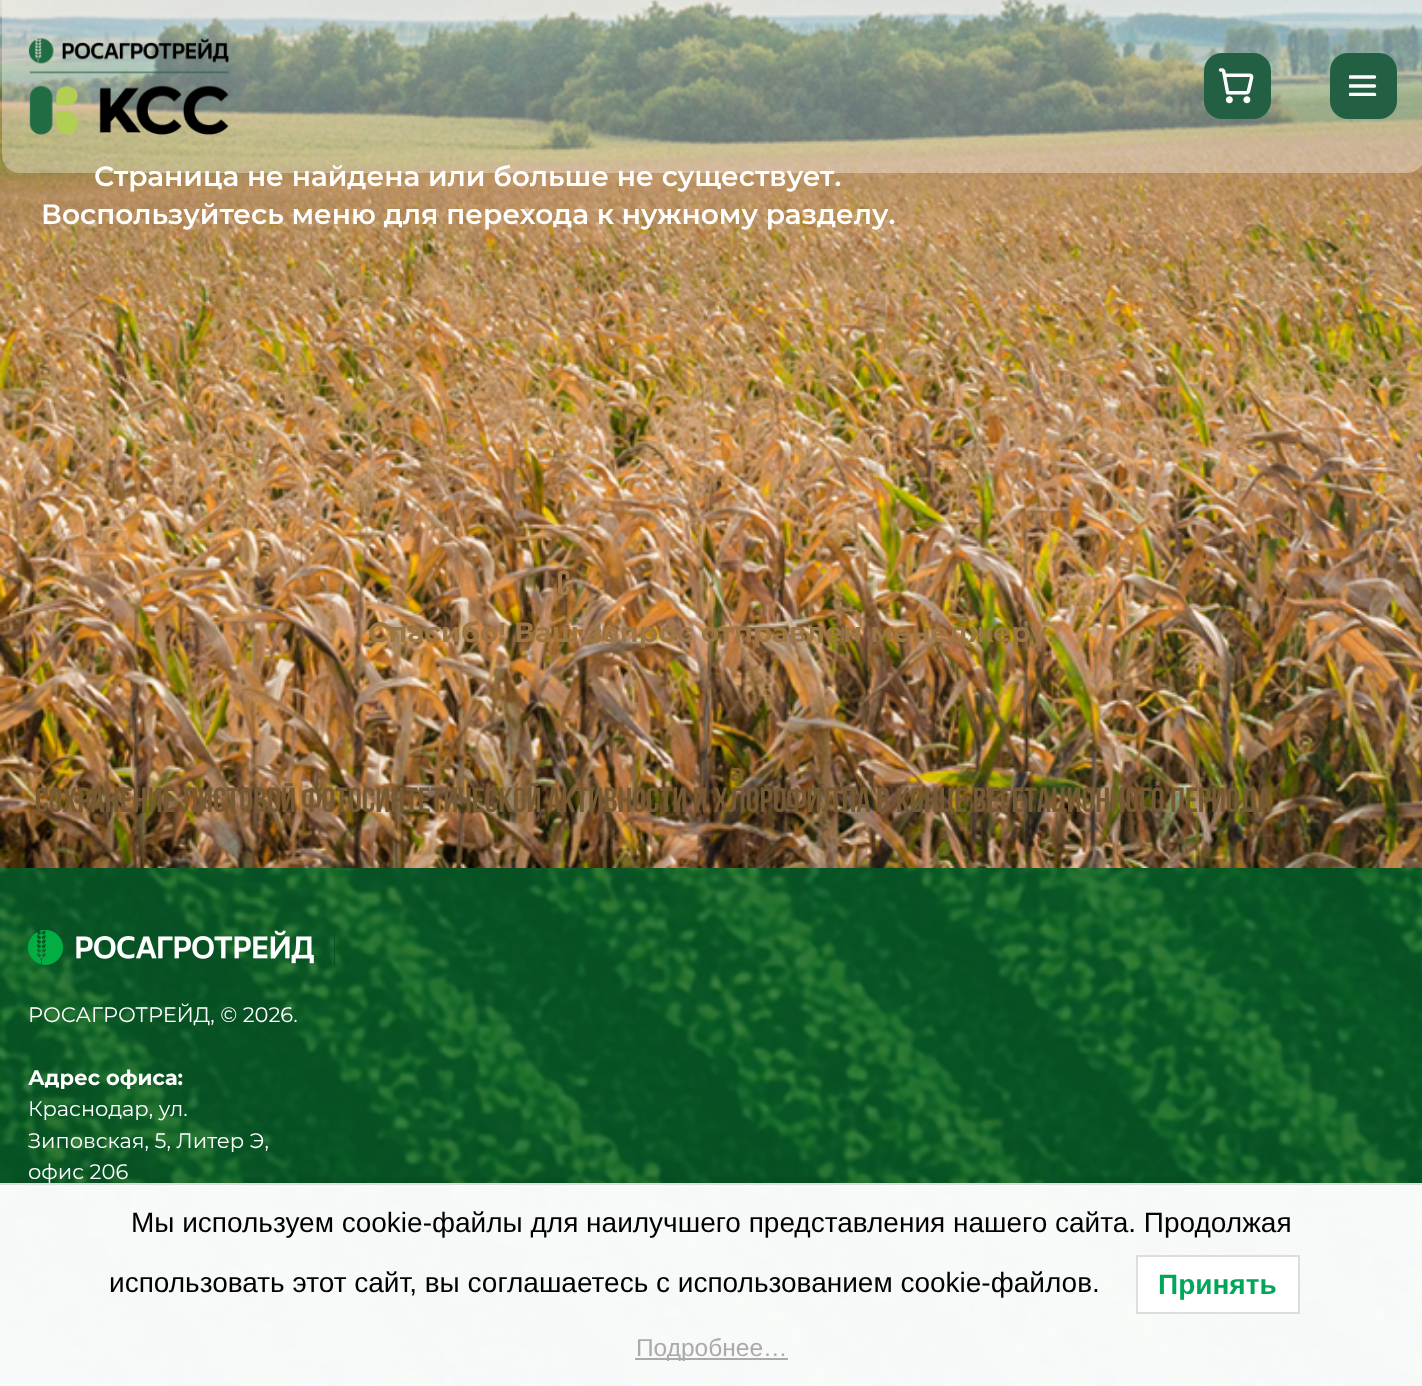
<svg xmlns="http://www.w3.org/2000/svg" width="1422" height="1386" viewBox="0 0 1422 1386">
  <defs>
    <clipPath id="clip1"><rect x="1349" y="75" width="28" height="21"/></clipPath>
    <clipPath id="clip2"><rect x="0" y="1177" width="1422" height="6"/></clipPath>
  </defs>
  <rect width="100%" height="100%" fill="rgb(255,255,255)"/>
  <image x="0" y="0" width="1422" height="868" href="pic3.png"/>
  <text x="94" y="186" font-family="Montserrat" font-size="28" font-weight="600" fill="rgb(255,255,255)">Страница не найдена или больше не существует.</text>
  <path d="M2 0H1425V155C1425 165 1417 173 1407 173H20C10 173 2 165 2 155Z" fill="rgba(255,255,255,0.35)"/>
  <image x="28" y="38" width="201" height="97" href="pic1.png"/>
  <rect x="1204" y="53" width="67" height="66" rx="18" fill="rgb(35,95,67)"/>
  <image x="1218" y="68" width="36" height="36" href="pic2.png"/>
  <rect x="1330" y="53" width="67" height="66" rx="18" fill="rgb(35,95,67)"/>
  <g clip-path="url(#clip1)">
    <path d="M1350 94.5H1374.5M1350 86H1374.5M1350 77H1374.5" fill="none" stroke="rgb(255,255,255)" stroke-width="3.5" stroke-linecap="round" stroke-linejoin="round"/>
  </g>
  <text x="41" y="224" font-family="Montserrat" font-size="28" font-weight="600" fill="rgb(255,255,255)">Воспользуйтесь меню для перехода к нужному разделу.</text>
  <text x="557" y="595" font-family="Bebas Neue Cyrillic" font-size="35" fill="rgb(168,124,73)">С</text>
  <text x="35" y="812" font-family="Bebas Neue Cyrillic" font-size="35" fill="rgb(117,90,51)">СОХРАНЕНИЕ ЛИСТОВОЙ ФОТОСИНТЕТИЧЕСКОЙ АКТИВНОСТИ И ХЛОРОФИЛЛА В КОНЦЕ ВЕГЕТАЦИОННОГО ПЕРИОДА</text>
  <text x="368" y="642" font-family="Montserrat" font-size="28" font-weight="bold" fill="rgb(156,118,67)">Спасибо! Ваш запрос отправлен менеджеру.</text>
  <text x="730" y="781" font-family="Montserrat" font-size="24.5" font-weight="bold" fill="rgb(125,93,49)">а</text>
  <image x="0" y="868" width="1422" height="518" href="pic4.png"/>
  <image x="28" y="929" width="307" height="36" href="pic5.png"/>
  <text x="28" y="1022" font-family="Montserrat" font-size="21" fill="rgb(255,255,255)">РОСАГРОТРЕЙД, © 2026.</text>
  <text x="28" y="1085" font-family="Montserrat" font-size="21" font-weight="bold" fill="rgb(255,255,255)">Адрес офиса:</text>
  <g font-family="Montserrat" font-size="21" fill="rgb(255,255,255)">
    <text>
      <tspan x="28" y="1116">Краснодар, ул.</tspan>
      <tspan x="28" y="1148">Зиповская, 5, Литер Э,</tspan>
      <tspan x="28" y="1179">офис 206</tspan>
    </text>
  </g>
  <g clip-path="url(#clip2)">
    <rect x="0" y="1183" width="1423" height="203" fill="rgba(0,0,0,0.1)" filter="blur(7px)"/>
  </g>
  <rect x="0" y="1185" width="1422" height="201" fill="rgba(255,255,255,0.97)"/>
  <rect x="0" y="1183" width="1422" height="2" fill="rgb(221,221,221)"/>
  <g font-family="Liberation Sans" font-size="28" fill="rgb(0,0,0)">
    <text x="131" y="1232">Мы используем cookie-файлы для наилучшего представления нашего сайта. Продолжая</text>
    <text x="109" y="1292">использовать этот сайт, вы соглашаетесь с использованием cookie-файлов.</text>
  </g>
  <rect x="1137" y="1256" width="162" height="57" fill="rgb(255,255,255)" stroke="rgb(221,221,221)" stroke-width="2"/>
  <text x="1158" y="1294" font-family="Liberation Sans" font-size="28" font-weight="bold" fill="rgb(0,166,90)">Принять</text>
  <rect x="635" y="1358" width="153" height="2" fill="rgb(170,170,170)"/>
  <text x="636" y="1356" font-family="Liberation Sans" font-size="24.5" fill="rgb(170,170,170)">Подробнее…</text>
</svg>
